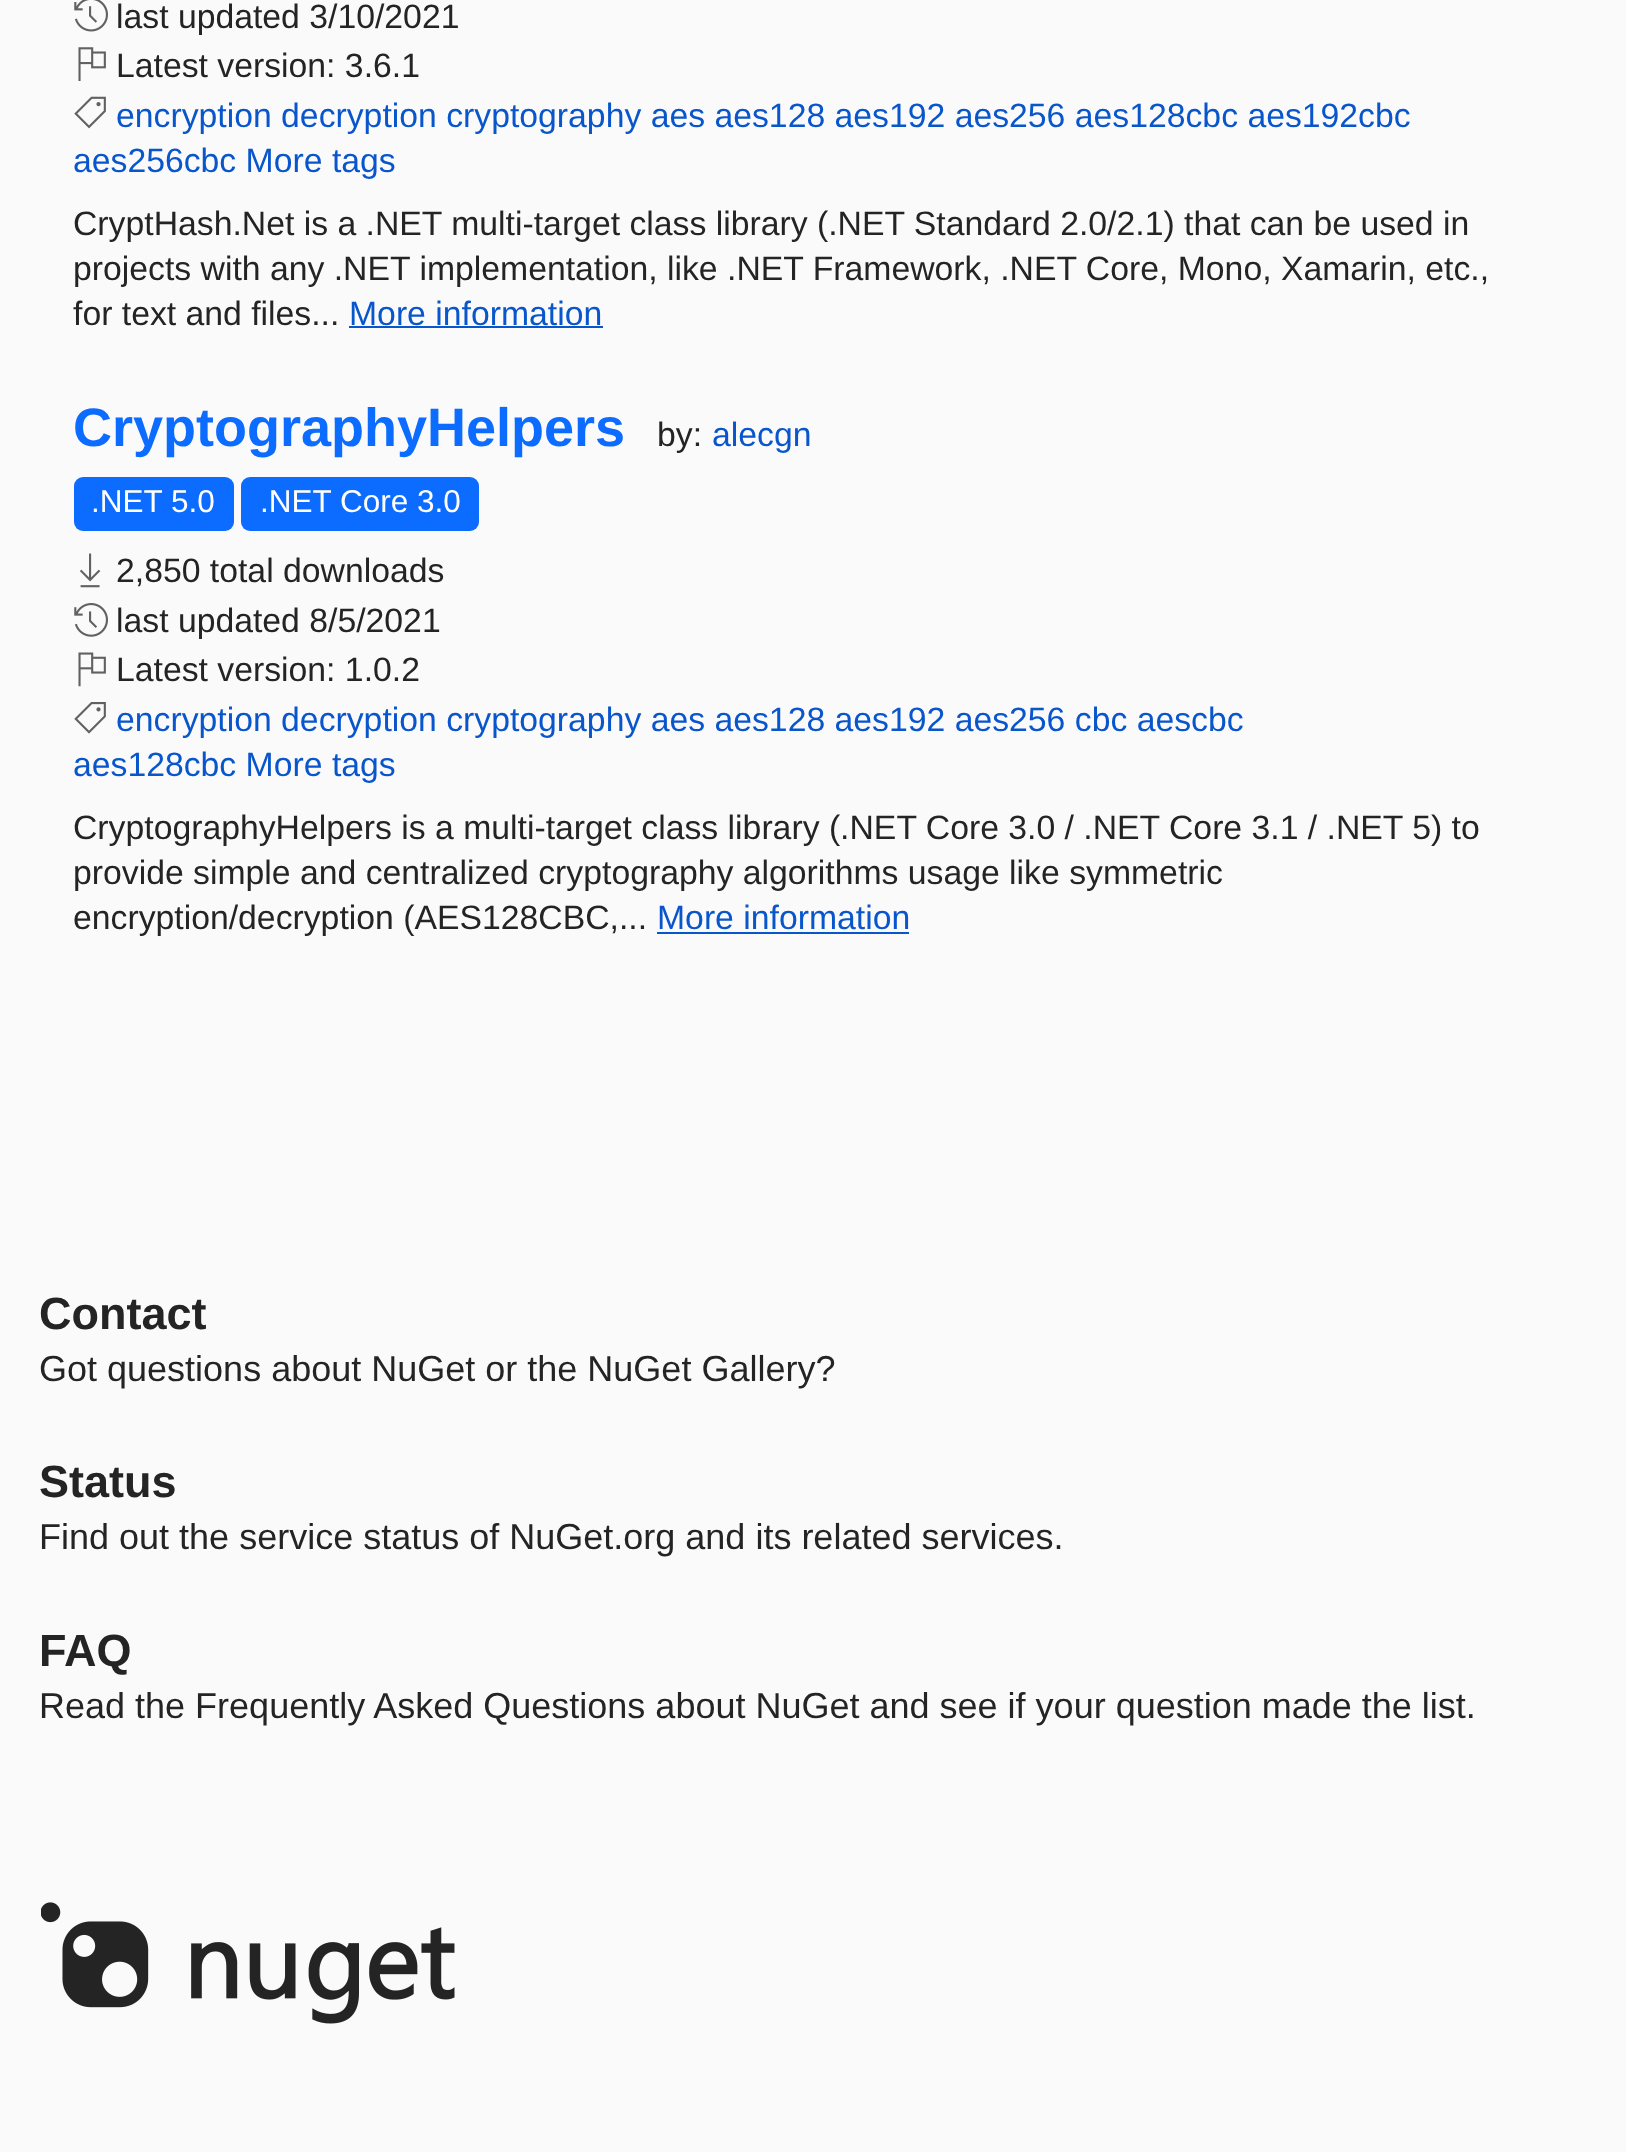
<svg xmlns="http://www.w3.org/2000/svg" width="1626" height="2152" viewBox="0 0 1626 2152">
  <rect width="100%" height="100%" fill="rgb(250,250,250)"/>
  <image x="74" y="0" width="34" height="32" href="pic1.png"/>
  <text x="116" y="28" font-family="Liberation Sans" font-size="33.75" fill="rgb(36,36,36)">last updated 3/10/2021</text>
  <image x="78" y="47" width="28" height="34" href="pic2.png"/>
  <text x="116" y="77" font-family="Liberation Sans" font-size="33.75" fill="rgb(36,36,36)">Latest version: 3.6.1</text>
  <image x="74" y="96" width="32" height="33" href="pic3.png"/>
  <g font-family="Liberation Sans" font-size="33.75" fill="rgb(9,86,204)">
    <text x="116" y="127">encryption decryption cryptography aes aes128 aes192 aes256 aes128cbc aes192cbc</text>
    <text x="73" y="172">aes256cbc More tags</text>
  </g>
  <g font-family="Liberation Sans" font-size="33.75" fill="rgb(36,36,36)">
    <text>
      <tspan x="73" y="235">CryptHash.Net is a .NET multi-target class library (.NET Standard 2.0/2.1) that can be used in</tspan>
      <tspan x="73" y="280">projects with any .NET implementation, like .NET Framework, .NET Core, Mono, Xamarin, etc.,</tspan>
      <tspan x="73" y="325">for text and files...</tspan>
    </text>
  </g>
  <text x="349" y="325" font-family="Liberation Sans" font-size="33.75" fill="rgb(9,86,204)">More information</text>
  <rect x="349" y="326" width="254" height="2" fill="rgb(9,86,204)"/>
  <text x="73" y="446" font-family="Liberation Sans" font-size="54" font-weight="bold" fill="rgb(11,108,255)">CryptographyHelpers</text>
  <text x="657" y="446" font-family="Liberation Sans" font-size="33.75" fill="rgb(36,36,36)">by:</text>
  <text x="712" y="446" font-family="Liberation Sans" font-size="33.75" fill="rgb(9,86,204)">alecgn</text>
  <rect x="74" y="477" width="160" height="54" rx="9" fill="rgb(11,108,255)"/>
  <text x="91" y="512" font-family="Liberation Sans" font-size="31.5" fill="rgb(255,255,255)">.NET 5.0</text>
  <rect x="241" y="477" width="238" height="54" rx="9" fill="rgb(11,108,255)"/>
  <text x="260" y="512" font-family="Liberation Sans" font-size="31.5" fill="rgb(255,255,255)">.NET Core 3.0</text>
  <image x="79" y="553" width="22" height="35" href="pic4.png"/>
  <text x="116" y="582" font-family="Liberation Sans" font-size="33.75" fill="rgb(36,36,36)">2,850 total downloads</text>
  <image x="74" y="603" width="34" height="34" href="pic5.png"/>
  <text x="116" y="632" font-family="Liberation Sans" font-size="33.75" fill="rgb(36,36,36)">last updated 8/5/2021</text>
  <image x="78" y="652" width="28" height="35" href="pic6.png"/>
  <text x="116" y="681" font-family="Liberation Sans" font-size="33.75" fill="rgb(36,36,36)">Latest version: 1.0.2</text>
  <image x="74" y="702" width="32" height="32" href="pic7.png"/>
  <g font-family="Liberation Sans" font-size="33.75" fill="rgb(9,86,204)">
    <text x="116" y="731">encryption decryption cryptography aes aes128 aes192 aes256 cbc aescbc</text>
    <text x="73" y="776">aes128cbc More tags</text>
  </g>
  <g font-family="Liberation Sans" font-size="33.75" fill="rgb(36,36,36)">
    <text>
      <tspan x="73" y="839">CryptographyHelpers is a multi-target class library (.NET Core 3.0 / .NET Core 3.1 / .NET 5) to</tspan>
      <tspan x="73" y="884">provide simple and centralized cryptography algorithms usage like symmetric</tspan>
      <tspan x="73" y="929">encryption/decryption (AES128CBC,...</tspan>
    </text>
  </g>
  <text x="657" y="929" font-family="Liberation Sans" font-size="33.75" fill="rgb(9,86,204)">More information</text>
  <rect x="657" y="932" width="252" height="2" fill="rgb(9,86,204)"/>
  <text x="39" y="1329" font-family="Liberation Sans" font-size="45" font-weight="bold" fill="rgb(36,36,36)">Contact</text>
  <text x="39" y="1381" font-family="Liberation Sans" font-size="36" fill="rgb(36,36,36)">Got questions about NuGet or the NuGet Gallery?</text>
  <text x="39" y="1497" font-family="Liberation Sans" font-size="45" font-weight="bold" fill="rgb(36,36,36)">Status</text>
  <text x="39" y="1549" font-family="Liberation Sans" font-size="36" fill="rgb(36,36,36)">Find out the service status of NuGet.org and its related services.</text>
  <text x="39" y="1666" font-family="Liberation Sans" font-size="45" font-weight="bold" fill="rgb(36,36,36)">FAQ</text>
  <text x="39" y="1718" font-family="Liberation Sans" font-size="36" fill="rgb(36,36,36)">Read the Frequently Asked Questions about NuGet and see if your question made the list.</text>
  <image x="41" y="1902" width="414" height="122" href="pic8.png"/>
</svg>
